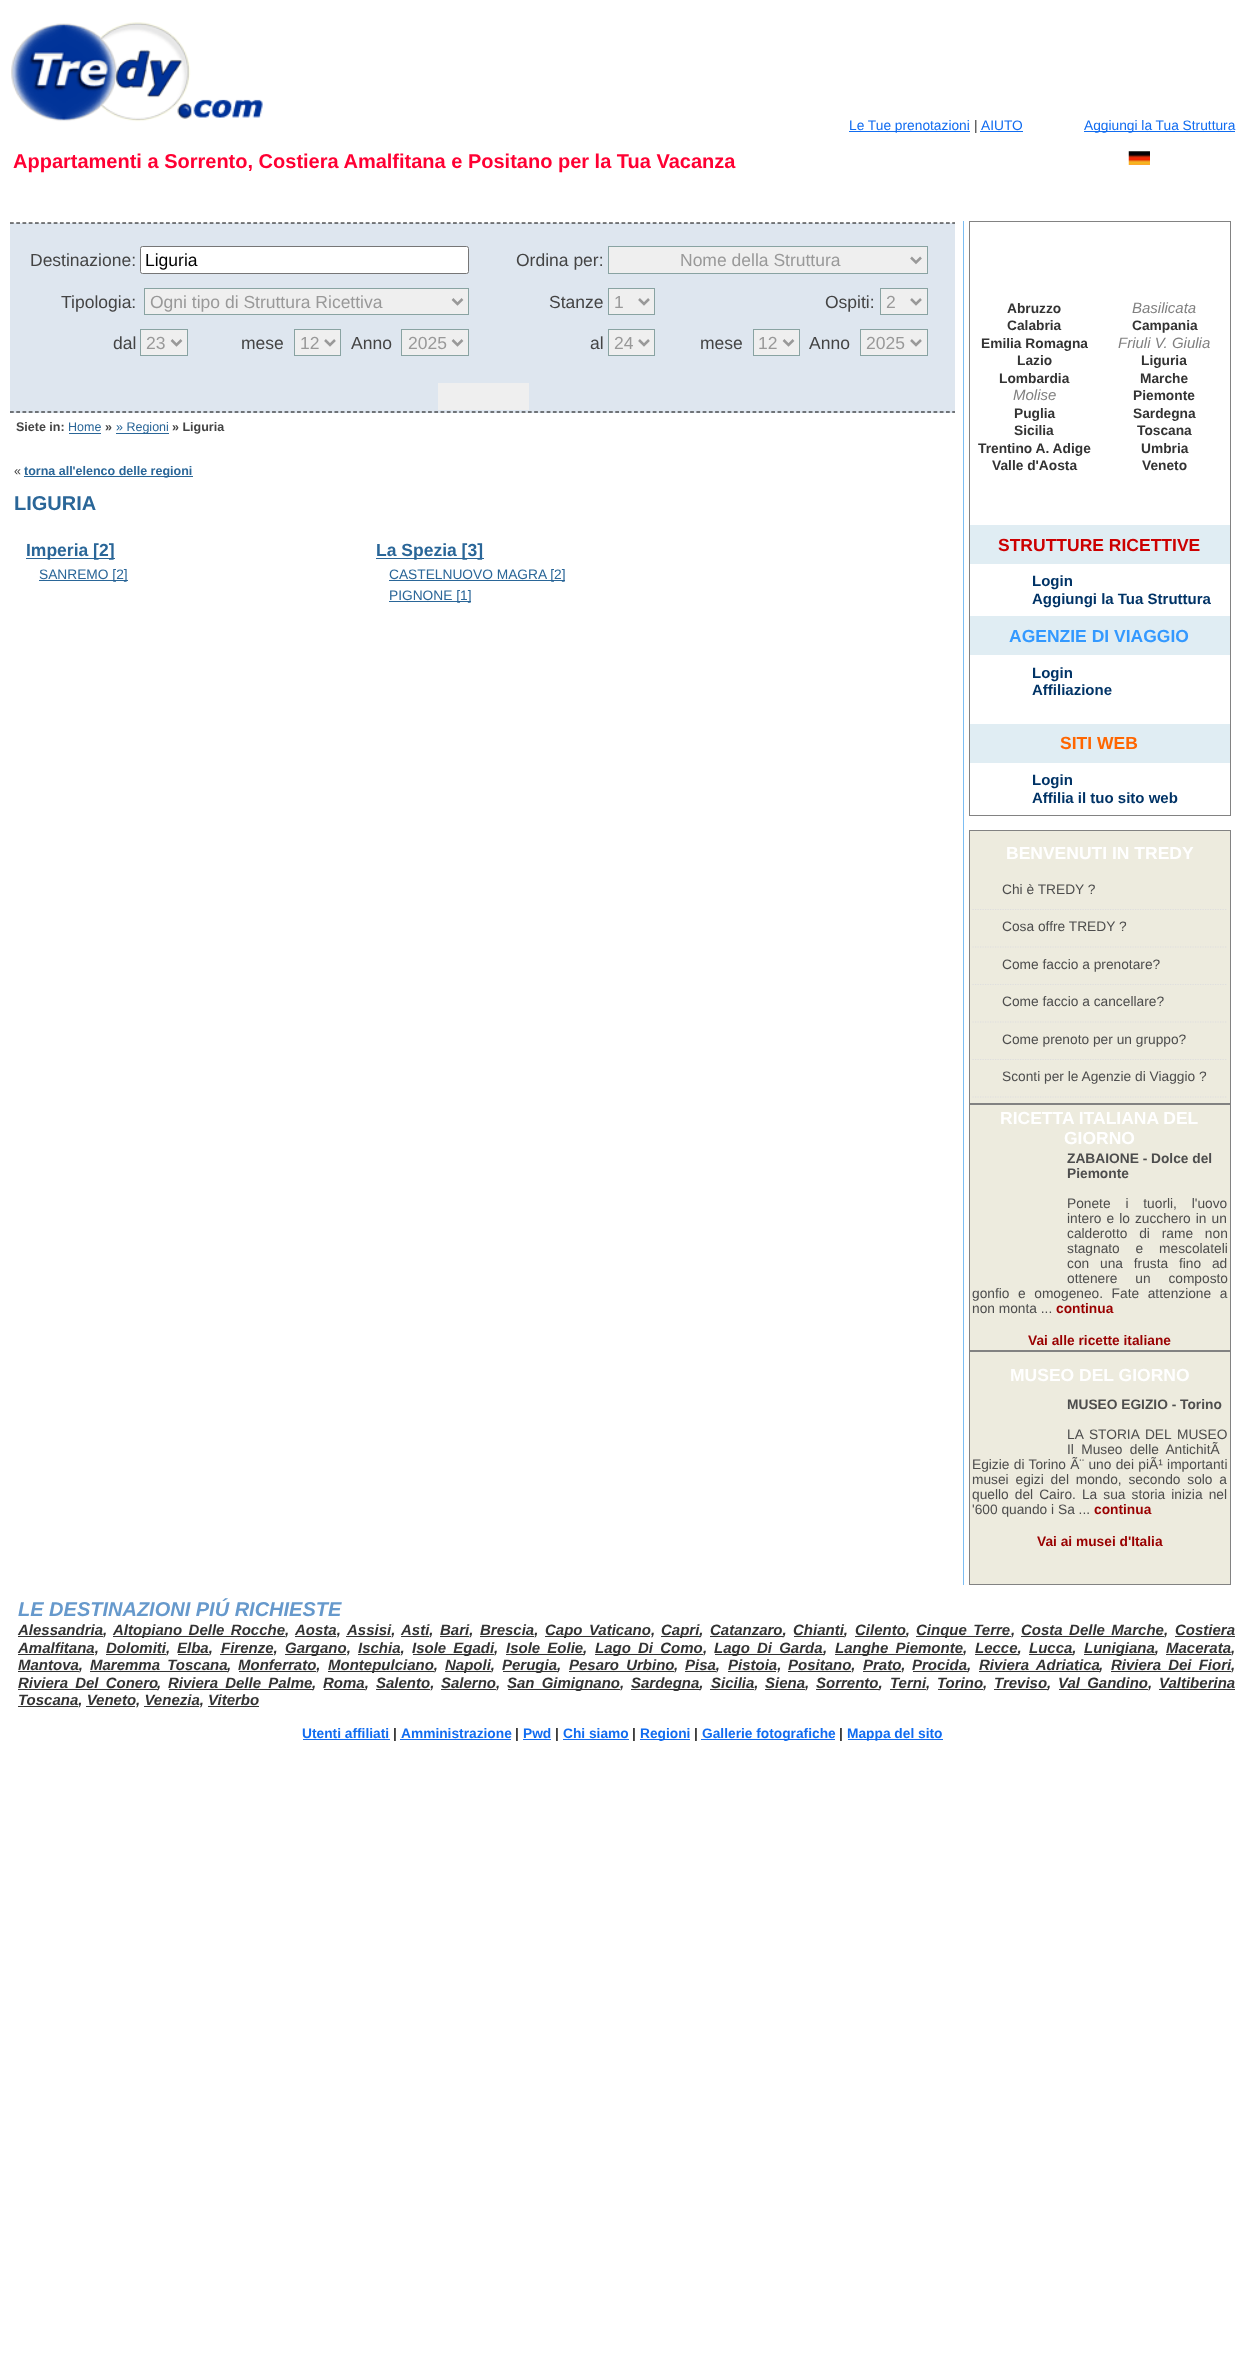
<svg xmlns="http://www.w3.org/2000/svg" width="1245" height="2354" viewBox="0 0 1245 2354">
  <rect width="100%" height="100%" fill="rgb(255,255,255)"/>
  <image x="11" y="22" width="252" height="100" href="pic1.png"/>
  <rect x="849" y="131" width="121" height="1" fill="rgb(17,108,240)"/>
  <text x="849" y="130" font-family="Liberation Sans" font-size="13.75" fill="rgb(17,108,240)">Le Tue prenotazioni</text>
  <text x="974" y="130" font-family="Liberation Sans" font-size="13.75" fill="rgb(51,51,51)">|</text>
  <text x="981" y="130" font-family="Liberation Sans" font-size="13.75" fill="rgb(17,108,240)">AIUTO</text>
  <rect x="980" y="131" width="43" height="1" fill="rgb(17,108,240)"/>
  <rect x="1084" y="131" width="151" height="1" fill="rgb(17,108,240)"/>
  <text x="1084" y="130" font-family="Liberation Sans" font-size="13.75" fill="rgb(17,108,240)">Aggiungi la Tua Struttura</text>
  <text x="13" y="168" font-family="Liberation Sans" font-size="20" font-weight="bold" fill="rgb(255,0,51)">Appartamenti a Sorrento, Costiera Amalfitana e Positano per la Tua Vacanza</text>
  <image x="1128" y="151" width="22" height="14" href="pic2.png"/>
  <rect x="963" y="221" width="1" height="1364" fill="rgb(124,189,243)"/>
  <rect x="10" y="223" width="945" height="190" fill="rgb(222,230,239)"/>
  <path d="M10 223H955" fill="none" stroke="rgb(0,0,0)" stroke-width="1.2" stroke-dasharray="3.75 2.49"/>
  <path d="M10 412H955" fill="none" stroke="rgb(0,0,0)" stroke-width="1.2" stroke-dasharray="3.75 2.49"/>
  <text x="30" y="266" font-family="Liberation Sans" font-size="17.5" fill="rgb(68,68,68)">Destinazione:</text>
  <rect x="140.5" y="246.5" width="328" height="27" rx="2" fill="rgb(255,255,255)" stroke="rgb(118,118,118)"/>
  <text x="145" y="266" font-family="Liberation Sans" font-size="17.5" fill="rgb(0,0,0)">Liguria</text>
  <text x="516" y="266" font-family="Liberation Sans" font-size="17.5" fill="rgb(68,68,68)">Ordina per:</text>
  <rect x="608.5" y="246.5" width="319" height="27" fill="rgb(239,239,239)" stroke="rgb(137,163,162)"/>
  <path d="M911 257.5L916 262.5L921 257.5" fill="none" stroke="rgb(153,153,153)" stroke-width="2.5"/>
  <text x="680" y="266" font-family="Liberation Sans" font-size="17.5" fill="rgb(153,153,153)">Nome della Struttura</text>
  <text x="61" y="308" font-family="Liberation Sans" font-size="17.5" fill="rgb(68,68,68)">Tipologia:</text>
  <rect x="144.5" y="288.5" width="324" height="26" fill="rgb(239,239,239)" stroke="rgb(137,163,162)"/>
  <path d="M452.5 299L457.5 304L462.5 299" fill="none" stroke="rgb(153,153,153)" stroke-width="2.5"/>
  <text x="150" y="308" font-family="Liberation Sans" font-size="17.5" fill="rgb(153,153,153)">Ogni tipo di Struttura Ricettiva</text>
  <text x="549" y="308" font-family="Liberation Sans" font-size="17.5" fill="rgb(68,68,68)">Stanze</text>
  <rect x="608.5" y="288.5" width="46" height="26" fill="rgb(239,239,239)" stroke="rgb(137,163,162)"/>
  <path d="M639 299L644 304L649 299" fill="none" stroke="rgb(153,153,153)" stroke-width="2.5"/>
  <text x="614" y="308" font-family="Liberation Sans" font-size="17.5" fill="rgb(153,153,153)">1</text>
  <text x="825" y="308" font-family="Liberation Sans" font-size="17.5" fill="rgb(68,68,68)">Ospiti:</text>
  <rect x="880.5" y="288.5" width="47" height="26" fill="rgb(239,239,239)" stroke="rgb(137,163,162)"/>
  <path d="M911 299L916 304L921 299" fill="none" stroke="rgb(153,153,153)" stroke-width="2.5"/>
  <text x="886" y="308" font-family="Liberation Sans" font-size="17.5" fill="rgb(153,153,153)">2</text>
  <text x="113" y="349" font-family="Liberation Sans" font-size="17.5" fill="rgb(68,68,68)">dal</text>
  <rect x="140.5" y="329.5" width="47" height="26" fill="rgb(239,239,239)" stroke="rgb(137,163,162)"/>
  <path d="M171.5 340L176.5 345L181.5 340" fill="none" stroke="rgb(153,153,153)" stroke-width="2.5"/>
  <text x="146" y="349" font-family="Liberation Sans" font-size="17.5" fill="rgb(153,153,153)">23</text>
  <text x="241" y="349" font-family="Liberation Sans" font-size="17.5" fill="rgb(68,68,68)">mese</text>
  <rect x="294.5" y="329.5" width="46" height="26" fill="rgb(239,239,239)" stroke="rgb(137,163,162)"/>
  <path d="M325 340L330 345L335 340" fill="none" stroke="rgb(153,153,153)" stroke-width="2.5"/>
  <text x="300" y="349" font-family="Liberation Sans" font-size="17.5" fill="rgb(153,153,153)">12</text>
  <text x="351" y="349" font-family="Liberation Sans" font-size="17.5" fill="rgb(68,68,68)">Anno</text>
  <rect x="401.5" y="329.5" width="67" height="26" fill="rgb(239,239,239)" stroke="rgb(137,163,162)"/>
  <path d="M452.5 340L457.5 345L462.5 340" fill="none" stroke="rgb(153,153,153)" stroke-width="2.5"/>
  <text x="408" y="349" font-family="Liberation Sans" font-size="17.5" fill="rgb(153,153,153)">2025</text>
  <text x="590" y="349" font-family="Liberation Sans" font-size="17.5" fill="rgb(68,68,68)">al</text>
  <rect x="608.5" y="329.5" width="46" height="26" fill="rgb(239,239,239)" stroke="rgb(137,163,162)"/>
  <path d="M639 340L644 345L649 340" fill="none" stroke="rgb(153,153,153)" stroke-width="2.5"/>
  <text x="614" y="349" font-family="Liberation Sans" font-size="17.5" fill="rgb(153,153,153)">24</text>
  <text x="700" y="349" font-family="Liberation Sans" font-size="17.5" fill="rgb(68,68,68)">mese</text>
  <rect x="753.5" y="329.5" width="46" height="26" fill="rgb(239,239,239)" stroke="rgb(137,163,162)"/>
  <path d="M783.5 340L788.5 345L793.5 340" fill="none" stroke="rgb(153,153,153)" stroke-width="2.5"/>
  <text x="758" y="349" font-family="Liberation Sans" font-size="17.5" fill="rgb(153,153,153)">12</text>
  <text x="809" y="349" font-family="Liberation Sans" font-size="17.5" fill="rgb(68,68,68)">Anno</text>
  <rect x="860.5" y="329.5" width="67" height="26" fill="rgb(239,239,239)" stroke="rgb(137,163,162)"/>
  <path d="M911 340L916 345L921 340" fill="none" stroke="rgb(153,153,153)" stroke-width="2.5"/>
  <text x="866" y="349" font-family="Liberation Sans" font-size="17.5" fill="rgb(153,153,153)">2025</text>
  <rect x="438" y="383" width="91" height="27" fill="rgb(239,239,239)"/>
  <text x="16" y="431" font-family="Liberation Sans" font-size="12.5" font-weight="bold" fill="rgb(68,68,68)">Siete in:</text>
  <text x="68" y="431" font-family="Liberation Sans" font-size="12.5" fill="rgb(42,102,152)">Home</text>
  <rect x="69" y="433" width="32" height="1" fill="rgb(42,102,152)"/>
  <text x="105" y="431" font-family="Liberation Sans" font-size="12.5" font-weight="bold" fill="rgb(68,68,68)">»</text>
  <rect x="116" y="433" width="53" height="1" fill="rgb(42,102,152)"/>
  <text x="116" y="431" font-family="Liberation Sans" font-size="12.5" fill="rgb(42,102,152)">» Regioni</text>
  <text x="172" y="431" font-family="Liberation Sans" font-size="12.5" font-weight="bold" fill="rgb(68,68,68)">» Liguria</text>
  <text x="14" y="475" font-family="Liberation Sans" font-size="12.5" fill="rgb(68,68,68)">«</text>
  <rect x="24" y="476" width="169" height="1" fill="rgb(42,102,152)"/>
  <text x="24" y="475" font-family="Liberation Sans" font-size="12.5" font-weight="bold" fill="rgb(42,102,152)">torna all'elenco delle regioni</text>
  <text x="14" y="510" font-family="Liberation Sans" font-size="20" font-weight="bold" fill="rgb(42,102,152)">LIGURIA</text>
  <rect x="26" y="558" width="89" height="1" fill="rgb(42,102,152)"/>
  <text x="26" y="556" font-family="Liberation Sans" font-size="17.5" font-weight="bold" fill="rgb(42,102,152)">Imperia [2]</text>
  <rect x="39" y="580" width="89" height="1" fill="rgb(42,102,152)"/>
  <text x="39" y="579" font-family="Liberation Sans" font-size="13.75" fill="rgb(42,102,152)">SANREMO [2]</text>
  <rect x="376" y="558" width="108" height="1" fill="rgb(42,102,152)"/>
  <text x="376" y="556" font-family="Liberation Sans" font-size="17.5" font-weight="bold" fill="rgb(42,102,152)">La Spezia [3]</text>
  <rect x="389" y="580" width="176" height="1" fill="rgb(42,102,152)"/>
  <text x="389" y="579" font-family="Liberation Sans" font-size="13.75" fill="rgb(42,102,152)">CASTELNUOVO MAGRA [2]</text>
  <rect x="389" y="601" width="82" height="1" fill="rgb(42,102,152)"/>
  <text x="389" y="600" font-family="Liberation Sans" font-size="13.75" fill="rgb(42,102,152)">PIGNONE [1]</text>
  <rect x="969" y="221" width="262" height="1" fill="rgb(130,130,130)"/>
  <rect x="1230" y="221" width="1" height="595" fill="rgb(130,130,130)"/>
  <rect x="969" y="815" width="262" height="1" fill="rgb(130,130,130)"/>
  <rect x="969" y="221" width="1" height="595" fill="rgb(130,130,130)"/>
  <g font-family="Liberation Sans" font-size="13.75" font-weight="bold" fill="rgb(51,51,51)">
    <text>
      <tspan x="1007" y="313">Abruzzo</tspan>
      <tspan x="1007" y="330">Calabria</tspan>
    </text>
    <text x="981" y="348">Emilia Romagna</text>
    <text x="1017" y="365">Lazio</text>
    <text x="999" y="383">Lombardia</text>
  </g>
  <text x="1013" y="400" font-family="Liberation Sans" font-size="15" font-style="italic" fill="rgb(128,128,128)">Molise</text>
  <g font-family="Liberation Sans" font-size="13.75" font-weight="bold" fill="rgb(51,51,51)">
    <text>
      <tspan x="1014" y="418">Puglia</tspan>
      <tspan x="1014" y="435">Sicilia</tspan>
    </text>
    <text x="978" y="453">Trentino A. Adige</text>
    <text x="992" y="470">Valle d'Aosta</text>
  </g>
  <text x="1132" y="313" font-family="Liberation Sans" font-size="15" font-style="italic" fill="rgb(128,128,128)">Basilicata</text>
  <text x="1132" y="330" font-family="Liberation Sans" font-size="13.75" font-weight="bold" fill="rgb(51,51,51)">Campania</text>
  <text x="1118" y="348" font-family="Liberation Sans" font-size="15" font-style="italic" fill="rgb(128,128,128)">Friuli V. Giulia</text>
  <g font-family="Liberation Sans" font-size="13.75" font-weight="bold" fill="rgb(51,51,51)">
    <text x="1141" y="365">Liguria</text>
    <text x="1140" y="383">Marche</text>
    <text>
      <tspan x="1133" y="400">Piemonte</tspan>
      <tspan x="1133" y="418">Sardegna</tspan>
    </text>
    <text x="1137" y="435">Toscana</text>
    <text x="1141" y="453">Umbria</text>
    <text x="1142" y="470">Veneto</text>
  </g>
  <rect x="970" y="525" width="260" height="39" fill="rgb(224,237,243)"/>
  <text x="998" y="551" font-family="Liberation Sans" font-size="17.5" font-weight="bold" fill="rgb(204,0,0)">STRUTTURE RICETTIVE</text>
  <g font-family="Liberation Sans" font-size="15" font-weight="bold" fill="rgb(0,51,102)">
    <text>
      <tspan x="1032" y="586">Login</tspan>
      <tspan x="1032" y="604">Aggiungi la Tua Struttura</tspan>
    </text>
  </g>
  <rect x="970" y="616" width="260" height="39" fill="rgb(224,237,243)"/>
  <text x="1009" y="642" font-family="Liberation Sans" font-size="17.5" font-weight="bold" fill="rgb(51,153,255)">AGENZIE DI VIAGGIO</text>
  <g font-family="Liberation Sans" font-size="15" font-weight="bold" fill="rgb(0,51,102)">
    <text>
      <tspan x="1032" y="678">Login</tspan>
      <tspan x="1032" y="695">Affiliazione</tspan>
    </text>
  </g>
  <rect x="970" y="724" width="260" height="39" fill="rgb(224,237,243)"/>
  <text x="1060" y="749" font-family="Liberation Sans" font-size="17.5" font-weight="bold" fill="rgb(255,102,0)">SITI WEB</text>
  <g font-family="Liberation Sans" font-size="15" font-weight="bold" fill="rgb(0,51,102)">
    <text>
      <tspan x="1032" y="785">Login</tspan>
      <tspan x="1032" y="803">Affilia il tuo sito web</tspan>
    </text>
  </g>
  <rect x="969.5" y="830.5" width="261" height="273" fill="rgb(237,235,222)" stroke="rgb(130,130,130)"/>
  <text x="1006" y="859" font-family="Liberation Sans" font-size="17.5" font-weight="bold" fill="rgb(255,255,255)">BENVENUTI IN TREDY</text>
  <path d="M972.5 909.5H1227.5" fill="none" stroke="rgb(222,222,222)" stroke-width="1.2" stroke-dasharray="1.25 1.25"/>
  <text x="1002" y="894" font-family="Liberation Sans" font-size="13.75" fill="rgb(77,77,77)">Chi è TREDY ?</text>
  <path d="M972.5 947H1227.5" fill="none" stroke="rgb(222,222,222)" stroke-width="1.2" stroke-dasharray="1.25 1.25"/>
  <text x="1002" y="931" font-family="Liberation Sans" font-size="13.75" fill="rgb(77,77,77)">Cosa offre TREDY ?</text>
  <path d="M972.5 984.5H1227.5" fill="none" stroke="rgb(222,222,222)" stroke-width="1.2" stroke-dasharray="1.25 1.25"/>
  <text x="1002" y="969" font-family="Liberation Sans" font-size="13.75" fill="rgb(77,77,77)">Come faccio a prenotare?</text>
  <path d="M972.5 1022H1227.5" fill="none" stroke="rgb(222,222,222)" stroke-width="1.2" stroke-dasharray="1.25 1.25"/>
  <text x="1002" y="1006" font-family="Liberation Sans" font-size="13.75" fill="rgb(77,77,77)">Come faccio a cancellare?</text>
  <path d="M972.5 1059.5H1227.5" fill="none" stroke="rgb(222,222,222)" stroke-width="1.2" stroke-dasharray="1.25 1.25"/>
  <text x="1002" y="1044" font-family="Liberation Sans" font-size="13.75" fill="rgb(77,77,77)">Come prenoto per un gruppo?</text>
  <path d="M972.5 1097H1227.5" fill="none" stroke="rgb(222,222,222)" stroke-width="1.2" stroke-dasharray="1.25 1.25"/>
  <text x="1002" y="1081" font-family="Liberation Sans" font-size="13.75" fill="rgb(77,77,77)">Sconti per le Agenzie di Viaggio ?</text>
  <rect x="969.5" y="1104.5" width="261" height="246" fill="rgb(237,235,222)" stroke="rgb(130,130,130)"/>
  <g font-family="Liberation Sans" font-size="17.5" font-weight="bold" fill="rgb(255,255,255)">
    <text x="1000" y="1124">RICETTA ITALIANA DEL</text>
    <text x="1064" y="1144">GIORNO</text>
  </g>
  <g font-family="Liberation Sans" font-size="13.75" font-weight="bold" fill="rgb(77,77,77)">
    <text>
      <tspan x="1067" y="1163">ZABAIONE - Dolce del</tspan>
      <tspan x="1067" y="1178">Piemonte</tspan>
    </text>
  </g>
  <g font-family="Liberation Sans" font-size="13.75" fill="rgb(77,77,77)">
    <text>
      <tspan x="1067" y="1208" word-spacing="11">Ponete i tuorli, l'uovo</tspan>
      <tspan x="1067" y="1223" word-spacing="1.25">intero e lo zucchero in un</tspan>
      <tspan x="1067" y="1238" word-spacing="8">calderotto di rame non</tspan>
      <tspan x="1067" y="1253" word-spacing="12">stagnato e mescolateli</tspan>
      <tspan x="1067" y="1268" word-spacing="7">con una frusta fino ad</tspan>
      <tspan x="1067" y="1283" word-spacing="14">ottenere un composto</tspan>
    </text>
    <text>
      <tspan x="972" y="1298" word-spacing="4.75">gonfio e omogeneo. Fate attenzione a</tspan>
      <tspan x="972" y="1313">non monta ...</tspan>
    </text>
  </g>
  <g font-family="Liberation Sans" font-size="13.75" font-weight="bold" fill="rgb(153,0,0)">
    <text x="1056" y="1313">continua</text>
    <text x="1028" y="1345">Vai alle ricette italiane</text>
  </g>
  <rect x="969.5" y="1351.5" width="261" height="233" fill="rgb(237,235,222)" stroke="rgb(130,130,130)"/>
  <text x="1010" y="1381" font-family="Liberation Sans" font-size="17.5" font-weight="bold" fill="rgb(255,255,255)">MUSEO DEL GIORNO</text>
  <text x="1067" y="1409" font-family="Liberation Sans" font-size="13.75" font-weight="bold" fill="rgb(77,77,77)">MUSEO EGIZIO - Torino</text>
  <g font-family="Liberation Sans" font-size="13.75" fill="rgb(77,77,77)">
    <text>
      <tspan x="1067" y="1439" word-spacing="2">LA STORIA DEL MUSEO</tspan>
      <tspan x="1067" y="1454" word-spacing="3.5">Il Museo delle AntichitÃ</tspan>
    </text>
    <text>
      <tspan x="972" y="1469" word-spacing="0.5">Egizie di Torino Ã¨ uno dei piÃ¹ importanti</tspan>
      <tspan x="972" y="1484" word-spacing="3">musei egizi del mondo, secondo solo a</tspan>
      <tspan x="972" y="1499" word-spacing="2.25">quello del Cairo. La sua storia inizia nel</tspan>
      <tspan x="972" y="1514">'600 quando i Sa ...</tspan>
    </text>
  </g>
  <g font-family="Liberation Sans" font-size="13.75" font-weight="bold" fill="rgb(153,0,0)">
    <text x="1094" y="1514">continua</text>
    <text x="1037" y="1546">Vai ai musei d'Italia</text>
  </g>
  <text x="18" y="1616" font-family="Liberation Sans" font-size="20" font-weight="bold" font-style="italic" fill="rgb(102,153,204)">LE DESTINAZIONI PIÚ RICHIESTE</text>
  <rect x="18" y="1636" width="85" height="1" fill="rgb(51,51,51)"/>
  <text x="18" y="1635" font-family="Liberation Sans" font-size="15" font-weight="bold" font-style="italic" fill="rgb(51,51,51)">Alessandria,</text>
  <rect x="113" y="1636" width="172" height="1" fill="rgb(51,51,51)"/>
  <g font-family="Liberation Sans" font-size="15" font-weight="bold" font-style="italic" fill="rgb(51,51,51)">
    <text x="113" y="1635" word-spacing="2.25">Altopiano Delle Rocche</text>
    <text x="285" y="1635">,</text>
  </g>
  <rect x="295" y="1636" width="41" height="1" fill="rgb(51,51,51)"/>
  <text x="295" y="1635" font-family="Liberation Sans" font-size="15" font-weight="bold" font-style="italic" fill="rgb(51,51,51)">Aosta,</text>
  <rect x="346" y="1636" width="45" height="1" fill="rgb(51,51,51)"/>
  <text x="347" y="1635" font-family="Liberation Sans" font-size="15" font-weight="bold" font-style="italic" fill="rgb(51,51,51)">Assisi,</text>
  <rect x="401" y="1636" width="28" height="1" fill="rgb(51,51,51)"/>
  <text x="401" y="1635" font-family="Liberation Sans" font-size="15" font-weight="bold" font-style="italic" fill="rgb(51,51,51)">Asti,</text>
  <rect x="440" y="1636" width="29" height="1" fill="rgb(51,51,51)"/>
  <text x="440" y="1635" font-family="Liberation Sans" font-size="15" font-weight="bold" font-style="italic" fill="rgb(51,51,51)">Bari,</text>
  <rect x="480" y="1636" width="54" height="1" fill="rgb(51,51,51)"/>
  <text x="480" y="1635" font-family="Liberation Sans" font-size="15" font-weight="bold" font-style="italic" fill="rgb(51,51,51)">Brescia,</text>
  <rect x="545" y="1636" width="105" height="1" fill="rgb(51,51,51)"/>
  <g font-family="Liberation Sans" font-size="15" font-weight="bold" font-style="italic" fill="rgb(51,51,51)">
    <text x="545" y="1635" word-spacing="2.25">Capo Vaticano</text>
    <text x="651" y="1635">,</text>
  </g>
  <rect x="661" y="1636" width="39" height="1" fill="rgb(51,51,51)"/>
  <text x="661" y="1635" font-family="Liberation Sans" font-size="15" font-weight="bold" font-style="italic" fill="rgb(51,51,51)">Capri,</text>
  <rect x="710" y="1636" width="73" height="1" fill="rgb(51,51,51)"/>
  <text x="710" y="1635" font-family="Liberation Sans" font-size="15" font-weight="bold" font-style="italic" fill="rgb(51,51,51)">Catanzaro,</text>
  <rect x="794" y="1636" width="50" height="1" fill="rgb(51,51,51)"/>
  <text x="793" y="1635" font-family="Liberation Sans" font-size="15" font-weight="bold" font-style="italic" fill="rgb(51,51,51)">Chianti,</text>
  <rect x="855" y="1636" width="51" height="1" fill="rgb(51,51,51)"/>
  <text x="855" y="1635" font-family="Liberation Sans" font-size="15" font-weight="bold" font-style="italic" fill="rgb(51,51,51)">Cilento,</text>
  <rect x="916" y="1636" width="95" height="1" fill="rgb(51,51,51)"/>
  <g font-family="Liberation Sans" font-size="15" font-weight="bold" font-style="italic" fill="rgb(51,51,51)">
    <text x="916" y="1635" word-spacing="2.25">Cinque Terre</text>
    <text x="1011" y="1635">,</text>
    <text x="1021" y="1635" word-spacing="2.25">Costa Delle Marche</text>
  </g>
  <rect x="1021" y="1636" width="143" height="1" fill="rgb(51,51,51)"/>
  <g font-family="Liberation Sans" font-size="15" font-weight="bold" font-style="italic" fill="rgb(51,51,51)">
    <text x="1164" y="1635">,</text>
    <text x="1175" y="1635">Costiera</text>
  </g>
  <rect x="1175" y="1636" width="60" height="1" fill="rgb(51,51,51)"/>
  <rect x="18" y="1654" width="76" height="1" fill="rgb(51,51,51)"/>
  <text x="18" y="1653" font-family="Liberation Sans" font-size="15" font-weight="bold" font-style="italic" fill="rgb(51,51,51)">Amalfitana,</text>
  <rect x="106" y="1654" width="60" height="1" fill="rgb(51,51,51)"/>
  <text x="106" y="1653" font-family="Liberation Sans" font-size="15" font-weight="bold" font-style="italic" fill="rgb(51,51,51)">Dolomiti,</text>
  <rect x="178" y="1654" width="31" height="1" fill="rgb(51,51,51)"/>
  <text x="177" y="1653" font-family="Liberation Sans" font-size="15" font-weight="bold" font-style="italic" fill="rgb(51,51,51)">Elba,</text>
  <rect x="220" y="1654" width="53" height="1" fill="rgb(51,51,51)"/>
  <text x="221" y="1653" font-family="Liberation Sans" font-size="15" font-weight="bold" font-style="italic" fill="rgb(51,51,51)">Firenze,</text>
  <rect x="285" y="1654" width="61" height="1" fill="rgb(51,51,51)"/>
  <text x="285" y="1653" font-family="Liberation Sans" font-size="15" font-weight="bold" font-style="italic" fill="rgb(51,51,51)">Gargano,</text>
  <rect x="358" y="1654" width="42" height="1" fill="rgb(51,51,51)"/>
  <text x="358" y="1653" font-family="Liberation Sans" font-size="15" font-weight="bold" font-style="italic" fill="rgb(51,51,51)">Ischia,</text>
  <rect x="413" y="1654" width="81" height="1" fill="rgb(51,51,51)"/>
  <g font-family="Liberation Sans" font-size="15" font-weight="bold" font-style="italic" fill="rgb(51,51,51)">
    <text x="412" y="1653" word-spacing="3">Isole Egadi</text>
    <text x="494" y="1653">,</text>
    <text x="506" y="1653" word-spacing="3">Isole Eolie</text>
  </g>
  <rect x="506" y="1654" width="78" height="1" fill="rgb(51,51,51)"/>
  <text x="583" y="1653" font-family="Liberation Sans" font-size="15" font-weight="bold" font-style="italic" fill="rgb(51,51,51)">,</text>
  <rect x="595" y="1654" width="108" height="1" fill="rgb(51,51,51)"/>
  <g font-family="Liberation Sans" font-size="15" font-weight="bold" font-style="italic" fill="rgb(51,51,51)">
    <text x="595" y="1653" word-spacing="3">Lago Di Como</text>
    <text x="703" y="1653">,</text>
  </g>
  <rect x="715" y="1654" width="109" height="1" fill="rgb(51,51,51)"/>
  <g font-family="Liberation Sans" font-size="15" font-weight="bold" font-style="italic" fill="rgb(51,51,51)">
    <text x="714" y="1653" word-spacing="3">Lago Di Garda</text>
    <text x="823" y="1653">,</text>
  </g>
  <rect x="835" y="1654" width="128" height="1" fill="rgb(51,51,51)"/>
  <g font-family="Liberation Sans" font-size="15" font-weight="bold" font-style="italic" fill="rgb(51,51,51)">
    <text x="835" y="1653" word-spacing="3">Langhe Piemonte</text>
    <text x="963" y="1653">,</text>
  </g>
  <rect x="975" y="1654" width="43" height="1" fill="rgb(51,51,51)"/>
  <text x="975" y="1653" font-family="Liberation Sans" font-size="15" font-weight="bold" font-style="italic" fill="rgb(51,51,51)">Lecce,</text>
  <rect x="1029" y="1654" width="44" height="1" fill="rgb(51,51,51)"/>
  <text x="1029" y="1653" font-family="Liberation Sans" font-size="15" font-weight="bold" font-style="italic" fill="rgb(51,51,51)">Lucca,</text>
  <rect x="1084" y="1654" width="71" height="1" fill="rgb(51,51,51)"/>
  <text x="1084" y="1653" font-family="Liberation Sans" font-size="15" font-weight="bold" font-style="italic" fill="rgb(51,51,51)">Lunigiana,</text>
  <rect x="1166" y="1654" width="65" height="1" fill="rgb(51,51,51)"/>
  <text x="1166" y="1653" font-family="Liberation Sans" font-size="15" font-weight="bold" font-style="italic" fill="rgb(51,51,51)">Macerata,</text>
  <rect x="18" y="1671" width="61" height="1" fill="rgb(51,51,51)"/>
  <g font-family="Liberation Sans" font-size="15" font-weight="bold" font-style="italic" fill="rgb(51,51,51)">
    <text x="18" y="1670">Mantova,</text>
    <text x="90" y="1670" word-spacing="3">Maremma Toscana</text>
  </g>
  <rect x="90" y="1671" width="138" height="1" fill="rgb(51,51,51)"/>
  <text x="227" y="1670" font-family="Liberation Sans" font-size="15" font-weight="bold" font-style="italic" fill="rgb(51,51,51)">,</text>
  <rect x="239" y="1671" width="77" height="1" fill="rgb(51,51,51)"/>
  <text x="238" y="1670" font-family="Liberation Sans" font-size="15" font-weight="bold" font-style="italic" fill="rgb(51,51,51)">Monferrato,</text>
  <rect x="328" y="1671" width="106" height="1" fill="rgb(51,51,51)"/>
  <text x="328" y="1670" font-family="Liberation Sans" font-size="15" font-weight="bold" font-style="italic" fill="rgb(51,51,51)">Montepulciano,</text>
  <rect x="445" y="1671" width="46" height="1" fill="rgb(51,51,51)"/>
  <text x="445" y="1670" font-family="Liberation Sans" font-size="15" font-weight="bold" font-style="italic" fill="rgb(51,51,51)">Napoli,</text>
  <rect x="503" y="1671" width="55" height="1" fill="rgb(51,51,51)"/>
  <g font-family="Liberation Sans" font-size="15" font-weight="bold" font-style="italic" fill="rgb(51,51,51)">
    <text x="502" y="1670">Perugia,</text>
    <text x="569" y="1670" word-spacing="3">Pesaro Urbino</text>
  </g>
  <rect x="569" y="1671" width="105" height="1" fill="rgb(51,51,51)"/>
  <text x="674" y="1670" font-family="Liberation Sans" font-size="15" font-weight="bold" font-style="italic" fill="rgb(51,51,51)">,</text>
  <rect x="685" y="1671" width="31" height="1" fill="rgb(51,51,51)"/>
  <text x="685" y="1670" font-family="Liberation Sans" font-size="15" font-weight="bold" font-style="italic" fill="rgb(51,51,51)">Pisa,</text>
  <rect x="728" y="1671" width="48" height="1" fill="rgb(51,51,51)"/>
  <text x="728" y="1670" font-family="Liberation Sans" font-size="15" font-weight="bold" font-style="italic" fill="rgb(51,51,51)">Pistoia,</text>
  <rect x="788" y="1671" width="63" height="1" fill="rgb(51,51,51)"/>
  <text x="788" y="1670" font-family="Liberation Sans" font-size="15" font-weight="bold" font-style="italic" fill="rgb(51,51,51)">Positano,</text>
  <rect x="863" y="1671" width="38" height="1" fill="rgb(51,51,51)"/>
  <text x="863" y="1670" font-family="Liberation Sans" font-size="15" font-weight="bold" font-style="italic" fill="rgb(51,51,51)">Prato,</text>
  <rect x="913" y="1671" width="55" height="1" fill="rgb(51,51,51)"/>
  <g font-family="Liberation Sans" font-size="15" font-weight="bold" font-style="italic" fill="rgb(51,51,51)">
    <text x="912" y="1670">Procida,</text>
    <text x="979" y="1670" word-spacing="3">Riviera Adriatica</text>
  </g>
  <rect x="979" y="1671" width="121" height="1" fill="rgb(51,51,51)"/>
  <g font-family="Liberation Sans" font-size="15" font-weight="bold" font-style="italic" fill="rgb(51,51,51)">
    <text x="1099" y="1670">,</text>
    <text x="1111" y="1670" word-spacing="3">Riviera Dei Fiori</text>
  </g>
  <rect x="1111" y="1671" width="120" height="1" fill="rgb(51,51,51)"/>
  <g font-family="Liberation Sans" font-size="15" font-weight="bold" font-style="italic" fill="rgb(51,51,51)">
    <text x="1231" y="1670">,</text>
    <text x="18" y="1688" word-spacing="3">Riviera Del Conero</text>
  </g>
  <rect x="18" y="1689" width="140" height="1" fill="rgb(51,51,51)"/>
  <g font-family="Liberation Sans" font-size="15" font-weight="bold" font-style="italic" fill="rgb(51,51,51)">
    <text x="157" y="1688">,</text>
    <text x="168" y="1688" word-spacing="3">Riviera Delle Palme</text>
  </g>
  <rect x="169" y="1689" width="144" height="1" fill="rgb(51,51,51)"/>
  <text x="312" y="1688" font-family="Liberation Sans" font-size="15" font-weight="bold" font-style="italic" fill="rgb(51,51,51)">,</text>
  <rect x="324" y="1689" width="41" height="1" fill="rgb(51,51,51)"/>
  <text x="323" y="1688" font-family="Liberation Sans" font-size="15" font-weight="bold" font-style="italic" fill="rgb(51,51,51)">Roma,</text>
  <rect x="376" y="1689" width="54" height="1" fill="rgb(51,51,51)"/>
  <text x="376" y="1688" font-family="Liberation Sans" font-size="15" font-weight="bold" font-style="italic" fill="rgb(51,51,51)">Salento,</text>
  <rect x="441" y="1689" width="55" height="1" fill="rgb(51,51,51)"/>
  <text x="441" y="1688" font-family="Liberation Sans" font-size="15" font-weight="bold" font-style="italic" fill="rgb(51,51,51)">Salerno,</text>
  <rect x="508" y="1689" width="112" height="1" fill="rgb(51,51,51)"/>
  <g font-family="Liberation Sans" font-size="15" font-weight="bold" font-style="italic" fill="rgb(51,51,51)">
    <text x="507" y="1688" word-spacing="3">San Gimignano</text>
    <text x="620" y="1688">,</text>
  </g>
  <rect x="631" y="1689" width="69" height="1" fill="rgb(51,51,51)"/>
  <text x="631" y="1688" font-family="Liberation Sans" font-size="15" font-weight="bold" font-style="italic" fill="rgb(51,51,51)">Sardegna,</text>
  <rect x="710" y="1689" width="44" height="1" fill="rgb(51,51,51)"/>
  <text x="711" y="1688" font-family="Liberation Sans" font-size="15" font-weight="bold" font-style="italic" fill="rgb(51,51,51)">Sicilia,</text>
  <rect x="765" y="1689" width="40" height="1" fill="rgb(51,51,51)"/>
  <text x="765" y="1688" font-family="Liberation Sans" font-size="15" font-weight="bold" font-style="italic" fill="rgb(51,51,51)">Siena,</text>
  <rect x="816" y="1689" width="63" height="1" fill="rgb(51,51,51)"/>
  <text x="816" y="1688" font-family="Liberation Sans" font-size="15" font-weight="bold" font-style="italic" fill="rgb(51,51,51)">Sorrento,</text>
  <rect x="890" y="1689" width="36" height="1" fill="rgb(51,51,51)"/>
  <text x="890" y="1688" font-family="Liberation Sans" font-size="15" font-weight="bold" font-style="italic" fill="rgb(51,51,51)">Terni,</text>
  <rect x="938" y="1689" width="45" height="1" fill="rgb(51,51,51)"/>
  <text x="937" y="1688" font-family="Liberation Sans" font-size="15" font-weight="bold" font-style="italic" fill="rgb(51,51,51)">Torino,</text>
  <rect x="994" y="1689" width="54" height="1" fill="rgb(51,51,51)"/>
  <g font-family="Liberation Sans" font-size="15" font-weight="bold" font-style="italic" fill="rgb(51,51,51)">
    <text x="994" y="1688">Treviso,</text>
    <text x="1058" y="1688" word-spacing="3">Val Gandino</text>
  </g>
  <rect x="1059" y="1689" width="89" height="1" fill="rgb(51,51,51)"/>
  <g font-family="Liberation Sans" font-size="15" font-weight="bold" font-style="italic" fill="rgb(51,51,51)">
    <text x="1148" y="1688">,</text>
    <text x="1159" y="1688">Valtiberina</text>
  </g>
  <rect x="1159" y="1689" width="76" height="1" fill="rgb(51,51,51)"/>
  <rect x="18" y="1706" width="60" height="1" fill="rgb(51,51,51)"/>
  <text x="18" y="1705" font-family="Liberation Sans" font-size="15" font-weight="bold" font-style="italic" fill="rgb(51,51,51)">Toscana, Veneto, Venezia, Viterbo</text>
  <rect x="86" y="1706" width="49" height="1" fill="rgb(51,51,51)"/>
  <rect x="144" y="1706" width="55" height="1" fill="rgb(51,51,51)"/>
  <rect x="208" y="1706" width="51" height="1" fill="rgb(51,51,51)"/>
  <text x="302" y="1738" font-family="Liberation Sans" font-size="13.75" font-weight="bold" fill="rgb(17,108,240)">Utenti affiliati</text>
  <rect x="303" y="1739" width="87" height="1" fill="rgb(17,108,240)"/>
  <text x="393" y="1738" font-family="Liberation Sans" font-size="13.75" font-weight="bold" fill="rgb(51,51,51)">|</text>
  <text x="401" y="1738" font-family="Liberation Sans" font-size="13.75" font-weight="bold" fill="rgb(17,108,240)">Amministrazione</text>
  <rect x="400" y="1739" width="111" height="1" fill="rgb(17,108,240)"/>
  <text x="515" y="1738" font-family="Liberation Sans" font-size="13.75" font-weight="bold" fill="rgb(51,51,51)">|</text>
  <text x="523" y="1738" font-family="Liberation Sans" font-size="13.75" font-weight="bold" fill="rgb(17,108,240)">Pwd</text>
  <rect x="523" y="1739" width="28" height="1" fill="rgb(17,108,240)"/>
  <text x="555" y="1738" font-family="Liberation Sans" font-size="13.75" font-weight="bold" fill="rgb(51,51,51)">|</text>
  <text x="563" y="1738" font-family="Liberation Sans" font-size="13.75" font-weight="bold" fill="rgb(17,108,240)">Chi siamo</text>
  <rect x="563" y="1739" width="66" height="1" fill="rgb(17,108,240)"/>
  <text x="632" y="1738" font-family="Liberation Sans" font-size="13.75" font-weight="bold" fill="rgb(51,51,51)">|</text>
  <rect x="640" y="1739" width="50" height="1" fill="rgb(17,108,240)"/>
  <text x="640" y="1738" font-family="Liberation Sans" font-size="13.75" font-weight="bold" fill="rgb(17,108,240)">Regioni</text>
  <text x="694" y="1738" font-family="Liberation Sans" font-size="13.75" font-weight="bold" fill="rgb(51,51,51)">|</text>
  <rect x="701" y="1739" width="134" height="1" fill="rgb(17,108,240)"/>
  <text x="702" y="1738" font-family="Liberation Sans" font-size="13.75" font-weight="bold" fill="rgb(17,108,240)">Gallerie fotografiche</text>
  <text x="839" y="1738" font-family="Liberation Sans" font-size="13.75" font-weight="bold" fill="rgb(51,51,51)">|</text>
  <rect x="848" y="1739" width="95" height="1" fill="rgb(17,108,240)"/>
  <text x="847" y="1738" font-family="Liberation Sans" font-size="13.75" font-weight="bold" fill="rgb(17,108,240)">Mappa del sito</text>
</svg>
